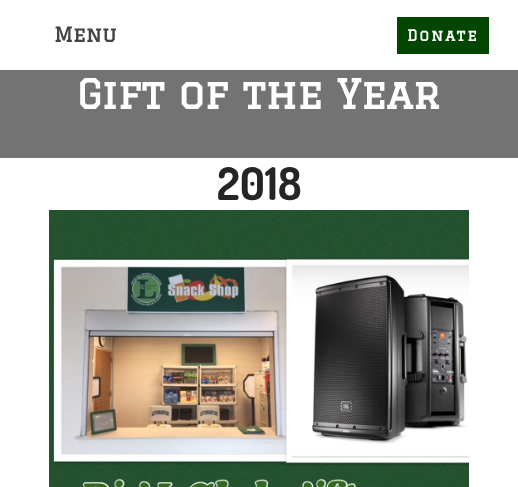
<svg xmlns="http://www.w3.org/2000/svg" width="518" height="487" viewBox="0 0 518 487">
  <rect width="100%" height="100%" fill="rgb(255,255,255)"/>
  <text x="54" y="42" font-family="Graduate" font-size="20" font-weight="bold" fill="rgb(68,68,68)">Menu</text>
  <rect x="397" y="17" width="92" height="37" fill="rgb(2,70,1)"/>
  <text x="407" y="41" font-family="Graduate" font-size="15" font-weight="bold" letter-spacing="2" fill="rgb(255,255,255)">Donate</text>
  <rect x="0" y="70" width="518" height="88" fill="rgb(115,115,115)"/>
  <text x="77" y="109" font-family="Graduate" font-size="40" font-weight="bold" fill="rgb(255,255,255)">Gift of the Year</text>
  <text x="217" y="200" font-family="Dosis" font-size="45" font-weight="bold" fill="rgb(37,37,37)">2018</text>
  <image x="49" y="210" width="420" height="277" href="pic1.png"/>
</svg>
